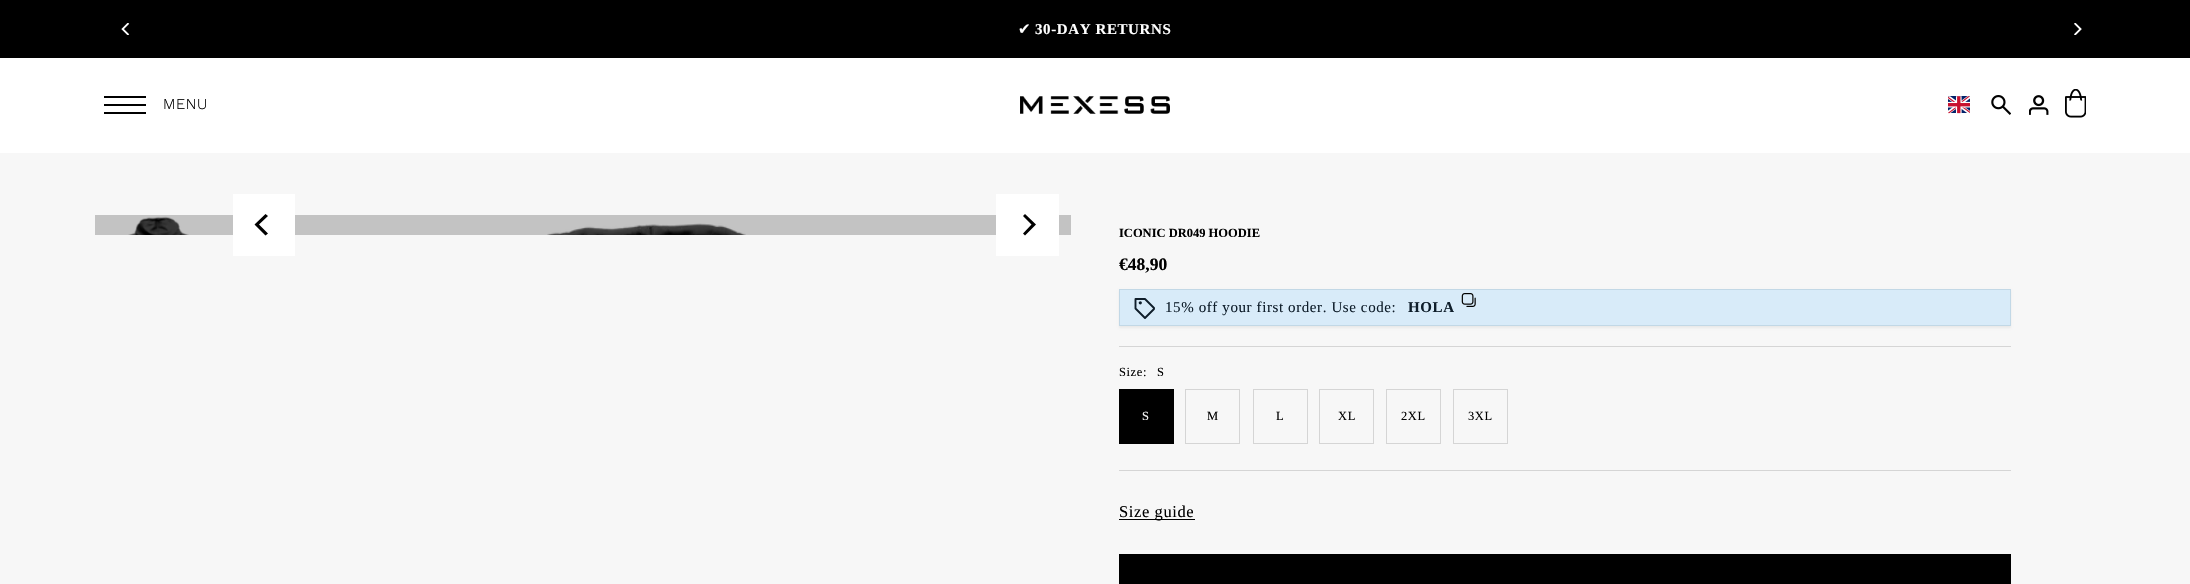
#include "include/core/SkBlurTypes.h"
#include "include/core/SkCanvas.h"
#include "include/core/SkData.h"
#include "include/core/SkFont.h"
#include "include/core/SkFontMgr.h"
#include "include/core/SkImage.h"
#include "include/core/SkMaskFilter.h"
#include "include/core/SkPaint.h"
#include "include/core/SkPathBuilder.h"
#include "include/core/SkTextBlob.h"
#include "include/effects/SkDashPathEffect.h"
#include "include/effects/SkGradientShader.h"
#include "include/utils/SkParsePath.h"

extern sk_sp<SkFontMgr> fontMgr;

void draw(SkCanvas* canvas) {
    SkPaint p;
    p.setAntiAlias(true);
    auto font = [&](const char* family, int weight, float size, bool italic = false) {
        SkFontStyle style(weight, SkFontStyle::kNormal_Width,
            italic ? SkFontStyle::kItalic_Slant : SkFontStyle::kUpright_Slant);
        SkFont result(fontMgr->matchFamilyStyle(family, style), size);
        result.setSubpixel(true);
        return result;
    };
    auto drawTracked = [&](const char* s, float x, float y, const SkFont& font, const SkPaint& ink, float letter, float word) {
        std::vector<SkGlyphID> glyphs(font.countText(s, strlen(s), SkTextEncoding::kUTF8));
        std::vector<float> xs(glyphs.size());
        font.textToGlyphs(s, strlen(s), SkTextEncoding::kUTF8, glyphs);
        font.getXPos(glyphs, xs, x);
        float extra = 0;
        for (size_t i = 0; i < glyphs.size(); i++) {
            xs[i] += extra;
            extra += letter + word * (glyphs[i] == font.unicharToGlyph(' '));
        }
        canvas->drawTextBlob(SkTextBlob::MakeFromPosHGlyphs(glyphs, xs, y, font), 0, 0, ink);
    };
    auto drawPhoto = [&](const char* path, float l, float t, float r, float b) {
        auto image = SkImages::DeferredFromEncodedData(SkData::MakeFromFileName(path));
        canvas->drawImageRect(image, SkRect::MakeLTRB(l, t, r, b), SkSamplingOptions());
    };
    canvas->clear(0xFFF7F7F7);
    p.setColor(0xFF000000);
    canvas->drawRect(SkRect::MakeLTRB(0, 0, 2190, 58), p);
    drawPhoto("media/1.png", 121, 23, 130, 35);
    auto font1 = font("DejaVu Sans", 400, 15);
    p.setColor(0xFFFFFFFF);
    drawTracked("✔", 1018, 34, font1, p, 0.6f, 0);
    auto font2 = font("Liberation Serif", 700, 15);
    drawTracked("30-DAY RETURNS", 1035, 34, font2, p, 0.6f, 0);
    drawPhoto("media/2.png", 2074, 23, 2082, 35);
    {
        const struct { float l, t, r, b; SkColor color; } items[] = {
            {0, 58, 2190, 153, 0xFFFFFFFF},
            {104, 96, 146, 98, 0xFF000000},
            {104, 104, 146, 106, 0xFF000000},
            {104, 112, 146, 114, 0xFF000000},
        };
        for (auto [l, t, r, b, color] : items) {
            p.setColor(color);
            canvas->drawRect(SkRect::MakeLTRB(l, t, r, b), p);
        }
    }
    auto font3 = font("Work Sans", 300, 15);
    drawTracked("MENU", 163, 109, font3, p, 0.6f, 0);
    drawPhoto("media/3.png", 1020, 96, 1170, 114);
    drawPhoto("media/4.png", 1948, 96, 1970, 114);
    drawPhoto("media/5.png", 1991, 95, 2011, 115);
    drawPhoto("media/6.png", 2029, 95, 2049, 115);
    drawPhoto("media/7.png", 2065, 89, 2086, 118);
    p.setColor(0xFFC3C3C3);
    canvas->drawRect(SkRect::MakeLTRB(95, 215, 1071, 235), p);
    p.setColor(0xFFFFFFFF);
    canvas->drawRect(SkRect::MakeLTRB(233, 194, 295, 256), p);
    p.setColor(0xFF000000);
    canvas->drawPath(SkPathBuilder().moveTo(254.5f, 224.5f).lineTo(265.5f, 235.5f).lineTo(268, 233.5f).lineTo(259, 224.5f).lineTo(268, 216).lineTo(265.5f, 214).close().detach(), p);
    p.setColor(0xFFFFFFFF);
    canvas->drawRect(SkRect::MakeLTRB(996, 194, 1059, 256), p);
    p.setColor(0xFF000000);
    canvas->drawPath(SkPathBuilder().moveTo(1036, 224.5f).lineTo(1025, 214).lineTo(1023, 216).lineTo(1031.5f, 224.5f).lineTo(1023, 233.5f).lineTo(1025, 235.5f).close().detach(), p);
    drawPhoto("media/8.png", 547, 223, 746, 235);
    drawPhoto("media/9.png", 128, 216, 189, 235);
    auto font4 = font("Liberation Serif", 700, 12.5f);
    canvas->drawString("ICONIC DR049 HOODIE", 1119, 237, font4, p);
    auto font5 = font("Liberation Serif", 700, 17.5f);
    canvas->drawString("€48,90", 1119, 270, font5, p);
    p.setColor(0x0D000000);
    p.setMaskFilter(SkMaskFilter::MakeBlur(kNormal_SkBlurStyle, 1));
    canvas->drawRect(SkRect::MakeLTRB(1119, 290, 2011, 328), p);
    p.setMaskFilter(nullptr);
    p.setColor(0xFFD8EBF9);
    canvas->drawRect(SkRect::MakeLTRB(1119.5f, 289.5f, 2010.5f, 325.5f), p);
    p.setStyle(SkPaint::kStroke_Style);
    p.setStrokeWidth(1);
    p.setColor(0xFFC2D8E6);
    canvas->drawRect(SkRect::MakeLTRB(1119.5f, 289.5f, 2010.5f, 325.5f), p);
    p.setStrokeWidth(1.9f);
    p.setStrokeCap(SkPaint::kRound_Cap);
    p.setStrokeJoin(SkPaint::kRound_Join);
    p.setColor(0xFF0F1E2B);
    canvas->drawPath(SkPathBuilder().moveTo(1154, 309).lineTo(1145, 318).lineTo(1135.5f, 308.5f).lineTo(1135.5f, 299).lineTo(1145, 299).lineTo(1154, 308).close().detach(), p);
    p.setStyle(SkPaint::kFill_Style);
    canvas->drawCircle(1140.3f, 302.8f, 1.6f, p);
    auto font6 = font("Liberation Serif", 400, 15);
    drawTracked("15% off your first order. Use code:", 1165, 312, font6, p, 0.6f, 0);
    drawTracked("HOLA", 1408, 312, font2, p, 0.6f, 0);
    drawPhoto("media/10.png", 1461, 293, 1476, 307);
    p.setColor(0xFFD5D5D5);
    canvas->drawRect(SkRect::MakeLTRB(1119, 470, 2011, 471), p);
    canvas->drawRect(SkRect::MakeLTRB(1119, 346, 2011, 347), p);
    auto font7 = font("Liberation Serif", 400, 12.5f);
    p.setColor(0xFF000000);
    drawTracked("Size:", 1119, 376, font7, p, 0.6f, 0);
    drawTracked("S", 1157, 376, font7, p, 0.6f, 0);
    canvas->drawRect(SkRect::MakeLTRB(1119, 389, 1174, 444), p);
    p.setColor(0xFFF7F7F7);
    drawTracked("S", 1142, 420, font7, p, 0.6f, 0);
    p.setStyle(SkPaint::kStroke_Style);
    p.setStrokeWidth(1);
    p.setStrokeCap(SkPaint::kButt_Cap);
    p.setStrokeJoin(SkPaint::kMiter_Join);
    p.setColor(0xFFD5D5D5);
    canvas->drawRect(SkRect::MakeLTRB(1185.5f, 389.5f, 1239.5f, 443.5f), p);
    p.setStyle(SkPaint::kFill_Style);
    p.setColor(0xFF000000);
    drawTracked("M", 1207, 420, font7, p, 0.6f, 0);
    p.setStyle(SkPaint::kStroke_Style);
    p.setColor(0xFFD5D5D5);
    canvas->drawRect(SkRect::MakeLTRB(1253.5f, 389.5f, 1307.5f, 443.5f), p);
    p.setStyle(SkPaint::kFill_Style);
    p.setColor(0xFF000000);
    drawTracked("L", 1276, 420, font7, p, 0.6f, 0);
    p.setStyle(SkPaint::kStroke_Style);
    p.setColor(0xFFD5D5D5);
    canvas->drawRect(SkRect::MakeLTRB(1319.5f, 389.5f, 1373.5f, 443.5f), p);
    p.setStyle(SkPaint::kFill_Style);
    p.setColor(0xFF000000);
    drawTracked("XL", 1338, 420, font7, p, 0.6f, 0);
    p.setStyle(SkPaint::kStroke_Style);
    p.setColor(0xFFD5D5D5);
    canvas->drawRect(SkRect::MakeLTRB(1386.5f, 389.5f, 1440.5f, 443.5f), p);
    p.setStyle(SkPaint::kFill_Style);
    p.setColor(0xFF000000);
    drawTracked("2XL", 1401, 420, font7, p, 0.6f, 0);
    p.setStyle(SkPaint::kStroke_Style);
    p.setColor(0xFFD5D5D5);
    canvas->drawRect(SkRect::MakeLTRB(1453.5f, 389.5f, 1507.5f, 443.5f), p);
    p.setStyle(SkPaint::kFill_Style);
    p.setColor(0xFF000000);
    drawTracked("3XL", 1468, 420, font7, p, 0.6f, 0);
    canvas->drawRect(SkRect::MakeLTRB(1119, 519, 1195, 520), p);
    auto font8 = font("Liberation Serif", 400, 16.5f);
    drawTracked("Size guide", 1119, 517, font8, p, 0.6f, 0);
    p.setStyle(SkPaint::kStroke_Style);
    canvas->drawRect(SkRect::MakeLTRB(1119.5f, 554.5f, 2010.5f, 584.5f), p);
    p.setStyle(SkPaint::kFill_Style);
    canvas->drawRect(SkRect::MakeLTRB(1120, 555, 2010, 584), p);
}
